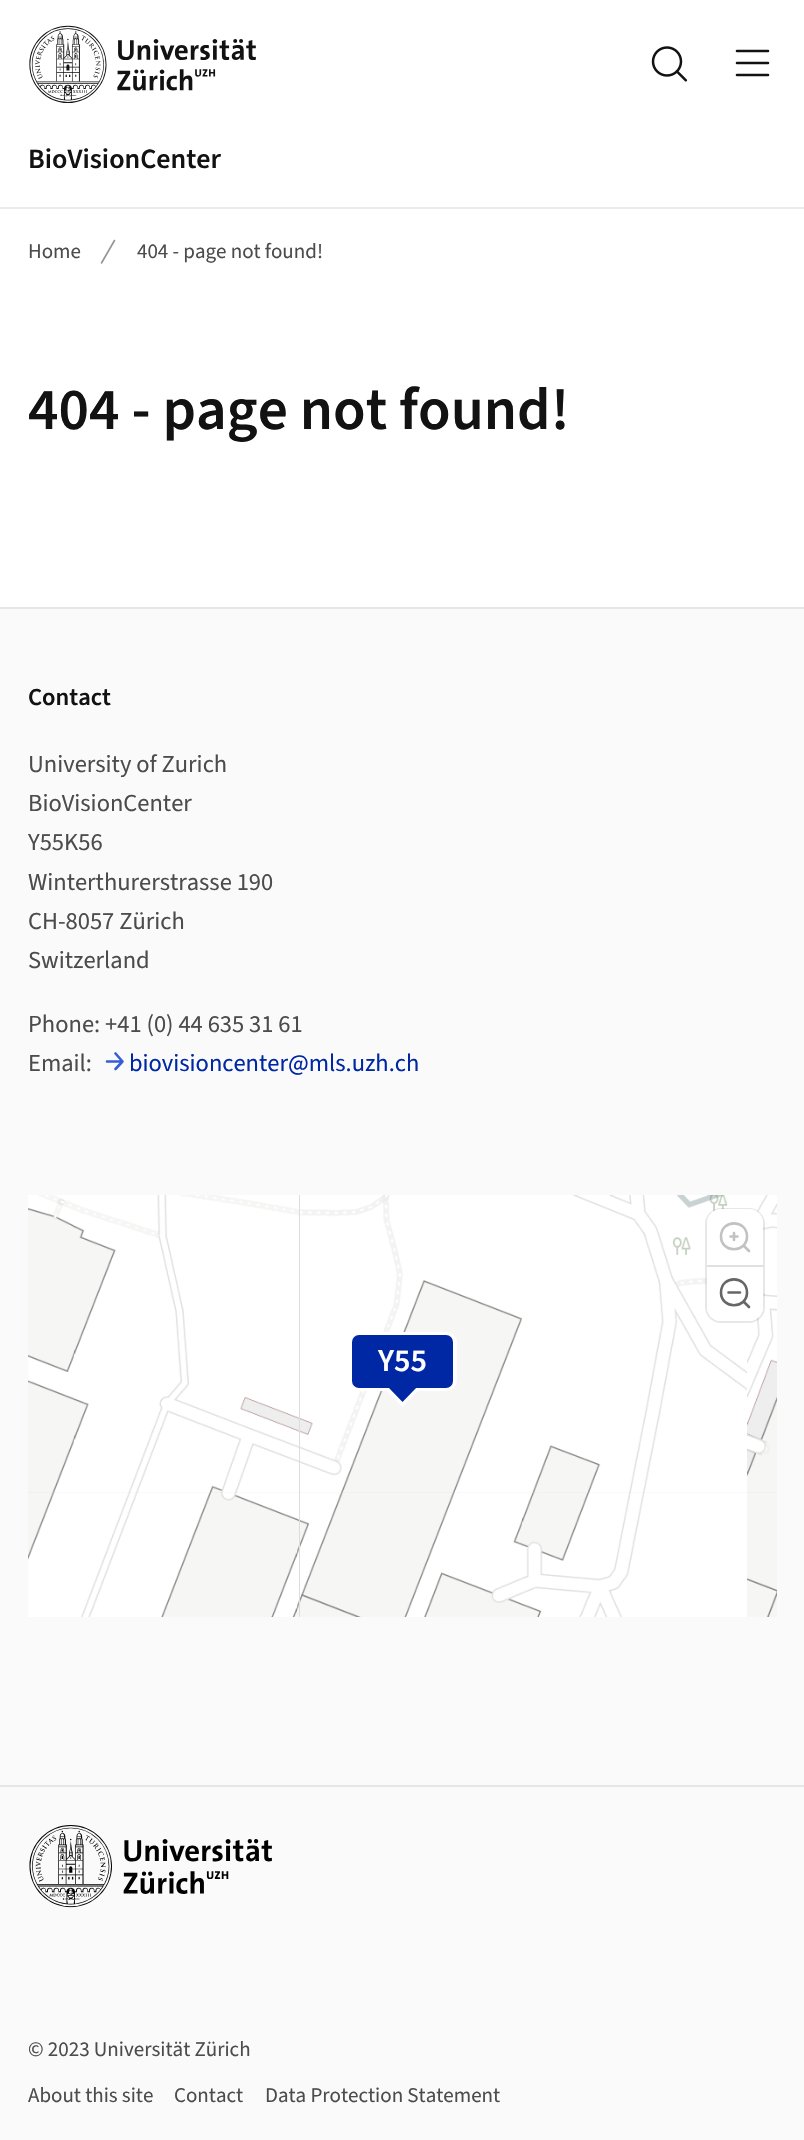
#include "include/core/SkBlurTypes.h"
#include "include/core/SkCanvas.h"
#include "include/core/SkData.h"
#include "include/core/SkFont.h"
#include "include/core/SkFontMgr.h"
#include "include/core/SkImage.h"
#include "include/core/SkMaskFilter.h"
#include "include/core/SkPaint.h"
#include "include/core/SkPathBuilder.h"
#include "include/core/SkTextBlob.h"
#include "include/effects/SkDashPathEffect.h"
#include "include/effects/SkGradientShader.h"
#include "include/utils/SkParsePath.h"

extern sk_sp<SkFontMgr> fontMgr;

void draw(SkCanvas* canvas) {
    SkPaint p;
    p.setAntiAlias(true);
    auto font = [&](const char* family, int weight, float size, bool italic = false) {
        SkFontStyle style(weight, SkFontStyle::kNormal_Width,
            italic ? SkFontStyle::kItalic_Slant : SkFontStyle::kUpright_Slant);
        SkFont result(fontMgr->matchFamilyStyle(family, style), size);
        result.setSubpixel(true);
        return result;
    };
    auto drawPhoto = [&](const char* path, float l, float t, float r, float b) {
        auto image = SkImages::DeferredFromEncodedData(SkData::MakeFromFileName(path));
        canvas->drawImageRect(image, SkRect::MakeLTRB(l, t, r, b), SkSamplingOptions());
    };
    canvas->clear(0xFFFFFFFF);
    p.setColor(0x14121212);
    canvas->drawRect(SkRect::MakeLTRB(0, 207, 804, 209), p);
    drawPhoto("media/1.png", 29, 25, 256, 103);
    drawPhoto("media/2.png", 651, 46, 688, 82);
    p.setStyle(SkPaint::kStroke_Style);
    p.setStrokeWidth(2.6f);
    p.setStrokeCap(SkPaint::kRound_Cap);
    p.setStrokeJoin(SkPaint::kRound_Join);
    p.setColor(0xFF121212);
    canvas->drawPath(SkPathBuilder().moveTo(737, 51).lineTo(768, 51).moveTo(737, 63).lineTo(768, 63).moveTo(737, 75).lineTo(768, 75).detach(), p);
    auto font1 = font("Source Sans 3", 600, 28);
    p.setStyle(SkPaint::kFill_Style);
    canvas->drawString("BioVisionCenter", 28, 168, font1, p);
    auto font2 = font("Source Sans 3", 400, 21);
    p.setColor(0xFF4C4C4C);
    canvas->drawString("Home", 28, 258, font2, p);
    p.setStyle(SkPaint::kStroke_Style);
    p.setStrokeWidth(1.6f);
    p.setStrokeJoin(SkPaint::kMiter_Join);
    p.setColor(0xFF949494);
    canvas->drawPath(SkPathBuilder().moveTo(101.5f, 263).lineTo(114.5f, 240.5f).detach(), p);
    p.setStyle(SkPaint::kFill_Style);
    p.setColor(0xFF4C4C4C);
    canvas->drawString("404 - page not found!", 137, 258, font2, p);
    auto font3 = font("Source Sans 3", 600, 59.5f);
    p.setColor(0xFF121212);
    canvas->drawString("404 - page not found!", 28, 429, font3, p);
    p.setColor(0xFFFAFAFA);
    canvas->drawRect(SkRect::MakeLTRB(0, 609, 804, 2140), p);
    p.setColor(0xFFE6E6E6);
    canvas->drawRect(SkRect::MakeLTRB(0, 607, 804, 609), p);
    auto font4 = font("Source Sans 3", 600, 24.5f);
    p.setColor(0xFF121212);
    canvas->drawString("Contact", 28, 705, font4, p);
    auto font5 = font("Source Sans 3", 400, 24.5f);
    p.setColor(0xFF4C4C4C);
    {
        const struct { const char* s; float x, y; } items[] = {
            {"University of Zurich", 28, 772},
            {"BioVisionCenter", 28, 811},
            {"Y55K56", 28, 850},
            {"Winterthurerstrasse 190", 28, 890},
            {"CH-8057 Zürich", 28, 929},
            {"Switzerland", 28, 968},
            {"Phone: +41 (0) 44 635 31 61", 28, 1032},
            {"Email:", 28, 1071},
        };
        for (auto [s, x, y] : items) {
            canvas->drawString(s, x, y, font5, p);
        }
    }
    p.setStyle(SkPaint::kStroke_Style);
    p.setStrokeWidth(2.6f);
    p.setStrokeJoin(SkPaint::kRound_Join);
    p.setColor(0xFF365DD5);
    canvas->drawPath(SkPathBuilder().moveTo(115.5f, 1053.5f).lineTo(122.5f, 1061.5f).moveTo(122.5f, 1061.5f).lineTo(115.5f, 1069).moveTo(122.5f, 1061.5f).lineTo(107, 1061.5f).detach(), p);
    p.setStyle(SkPaint::kFill_Style);
    p.setColor(0xFF0028A5);
    canvas->drawString("biovisioncenter@mls.uzh.ch", 129, 1071, font5, p);
    p.setColor(0xFFDDDDDD);
    canvas->drawRect(SkRect::MakeLTRB(28, 1195, 777, 1617), p);
    drawPhoto("media/4.png", 300, 1195, 747, 1493);
    drawPhoto("media/5.png", 747, 1195, 777, 1493);
    p.setStyle(SkPaint::kStroke_Style);
    p.setStrokeWidth(2);
    p.setStrokeCap(SkPaint::kButt_Cap);
    p.setStrokeJoin(SkPaint::kMiter_Join);
    p.setColor(0x1A121212);
    canvas->drawRoundRect(SkRect::MakeLTRB(706, 1209, 764, 1322), 15, 15, p);
    p.setStyle(SkPaint::kFill_Style);
    p.setColor(0xFFFFFFFF);
    canvas->drawRoundRect(SkRect::MakeLTRB(707, 1209, 763, 1321), 14, 14, p);
    p.setColor(0x66FFFFFF);
    canvas->drawPath(SkPathBuilder().moveTo(721, 1209).lineTo(749, 1209).cubicTo(756.5f, 1209, 763, 1215.5f, 763, 1223).lineTo(763, 1265).lineTo(707, 1265).lineTo(707, 1223).cubicTo(707, 1215.5f, 713.5f, 1209, 721, 1209).close().detach(), p);
    p.setStyle(SkPaint::kStroke_Style);
    p.setStrokeWidth(2.6f);
    p.setStrokeCap(SkPaint::kRound_Cap);
    p.setStrokeJoin(SkPaint::kRound_Join);
    p.setColor(0xFFC2C2C2);
    canvas->drawPath(SkPathBuilder().moveTo(749, 1251).lineTo(743.5f, 1245.5f).moveTo(721, 1236.5f).cubicTo(721, 1253.5f, 747, 1253.5f, 747, 1236.5f).cubicTo(747, 1219, 721, 1219, 721, 1236.5f).moveTo(734, 1233).lineTo(734, 1240).moveTo(730.5f, 1236.5f).lineTo(737.5f, 1236.5f).detach(), p);
    p.setStyle(SkPaint::kFill_Style);
    p.setColor(0xFFFFFFFF);
    canvas->drawPath(SkPathBuilder().moveTo(707, 1265).lineTo(763, 1265).lineTo(763, 1307).cubicTo(763, 1314.5f, 756.5f, 1321, 749, 1321).lineTo(721, 1321).cubicTo(713.5f, 1321, 707, 1314.5f, 707, 1307).close().detach(), p);
    p.setStyle(SkPaint::kStroke_Style);
    p.setColor(0xFF666666);
    canvas->drawPath(SkPathBuilder().moveTo(747, 1292.5f).cubicTo(747, 1309.5f, 721, 1309.5f, 721, 1292.5f).cubicTo(721, 1275, 747, 1275, 747, 1292.5f).close().moveTo(749, 1307).lineTo(743.5f, 1301.5f).moveTo(740, 1292.5f).lineTo(728.5f, 1292.5f).detach(), p);
    p.setStyle(SkPaint::kFill_Style);
    p.setColor(0xFFE0E0E0);
    canvas->drawRect(SkRect::MakeLTRB(707, 1265, 763, 1267), p);
    drawPhoto("media/3.png", 28, 1195, 299, 1493);
    drawPhoto("media/6.png", 28, 1493, 299, 1617);
    drawPhoto("media/7.png", 300, 1493, 747, 1617);
    drawPhoto("media/8.png", 747, 1493, 777, 1617);
    p.setStyle(SkPaint::kStroke_Style);
    p.setStrokeWidth(4);
    p.setStrokeCap(SkPaint::kButt_Cap);
    p.setStrokeJoin(SkPaint::kMiter_Join);
    p.setColor(0xFFFFFFFF);
    canvas->drawRoundRect(SkRect::MakeLTRB(350, 1334, 455, 1389), 9, 9, p);
    p.setStyle(SkPaint::kFill_Style);
    p.setColor(0xFF0028A5);
    canvas->drawRoundRect(SkRect::MakeLTRB(352, 1335, 453, 1388), 7, 7, p);
    auto font6 = font("Source Sans 3", 600, 32);
    p.setColor(0xFFFFFFFF);
    canvas->drawString("Y55", 378, 1371, font6, p);
    canvas->drawPath(SkPathBuilder().moveTo(387, 1391).lineTo(418, 1391).lineTo(402.5f, 1407).close().detach(), p);
    p.setColor(0xFF0028A5);
    canvas->drawPath(SkPathBuilder().moveTo(387, 1386).lineTo(418, 1386).lineTo(402.5f, 1402).close().detach(), p);
    p.setColor(0xFFE6E6E6);
    canvas->drawRect(SkRect::MakeLTRB(0, 1785, 804, 1787), p);
    drawPhoto("media/9.png", 29, 1825, 272, 1908);
    p.setColor(0xFF4C4C4C);
    {
        const struct { const char* s; float x, y; } items[] = {
            {"© 2023 Universität Zürich", 28, 2056},
            {"About this site", 28, 2102},
            {"Contact", 174, 2102},
            {"Data Protection Statement", 265, 2102},
        };
        for (auto [s, x, y] : items) {
            canvas->drawString(s, x, y, font2, p);
        }
    }
}
